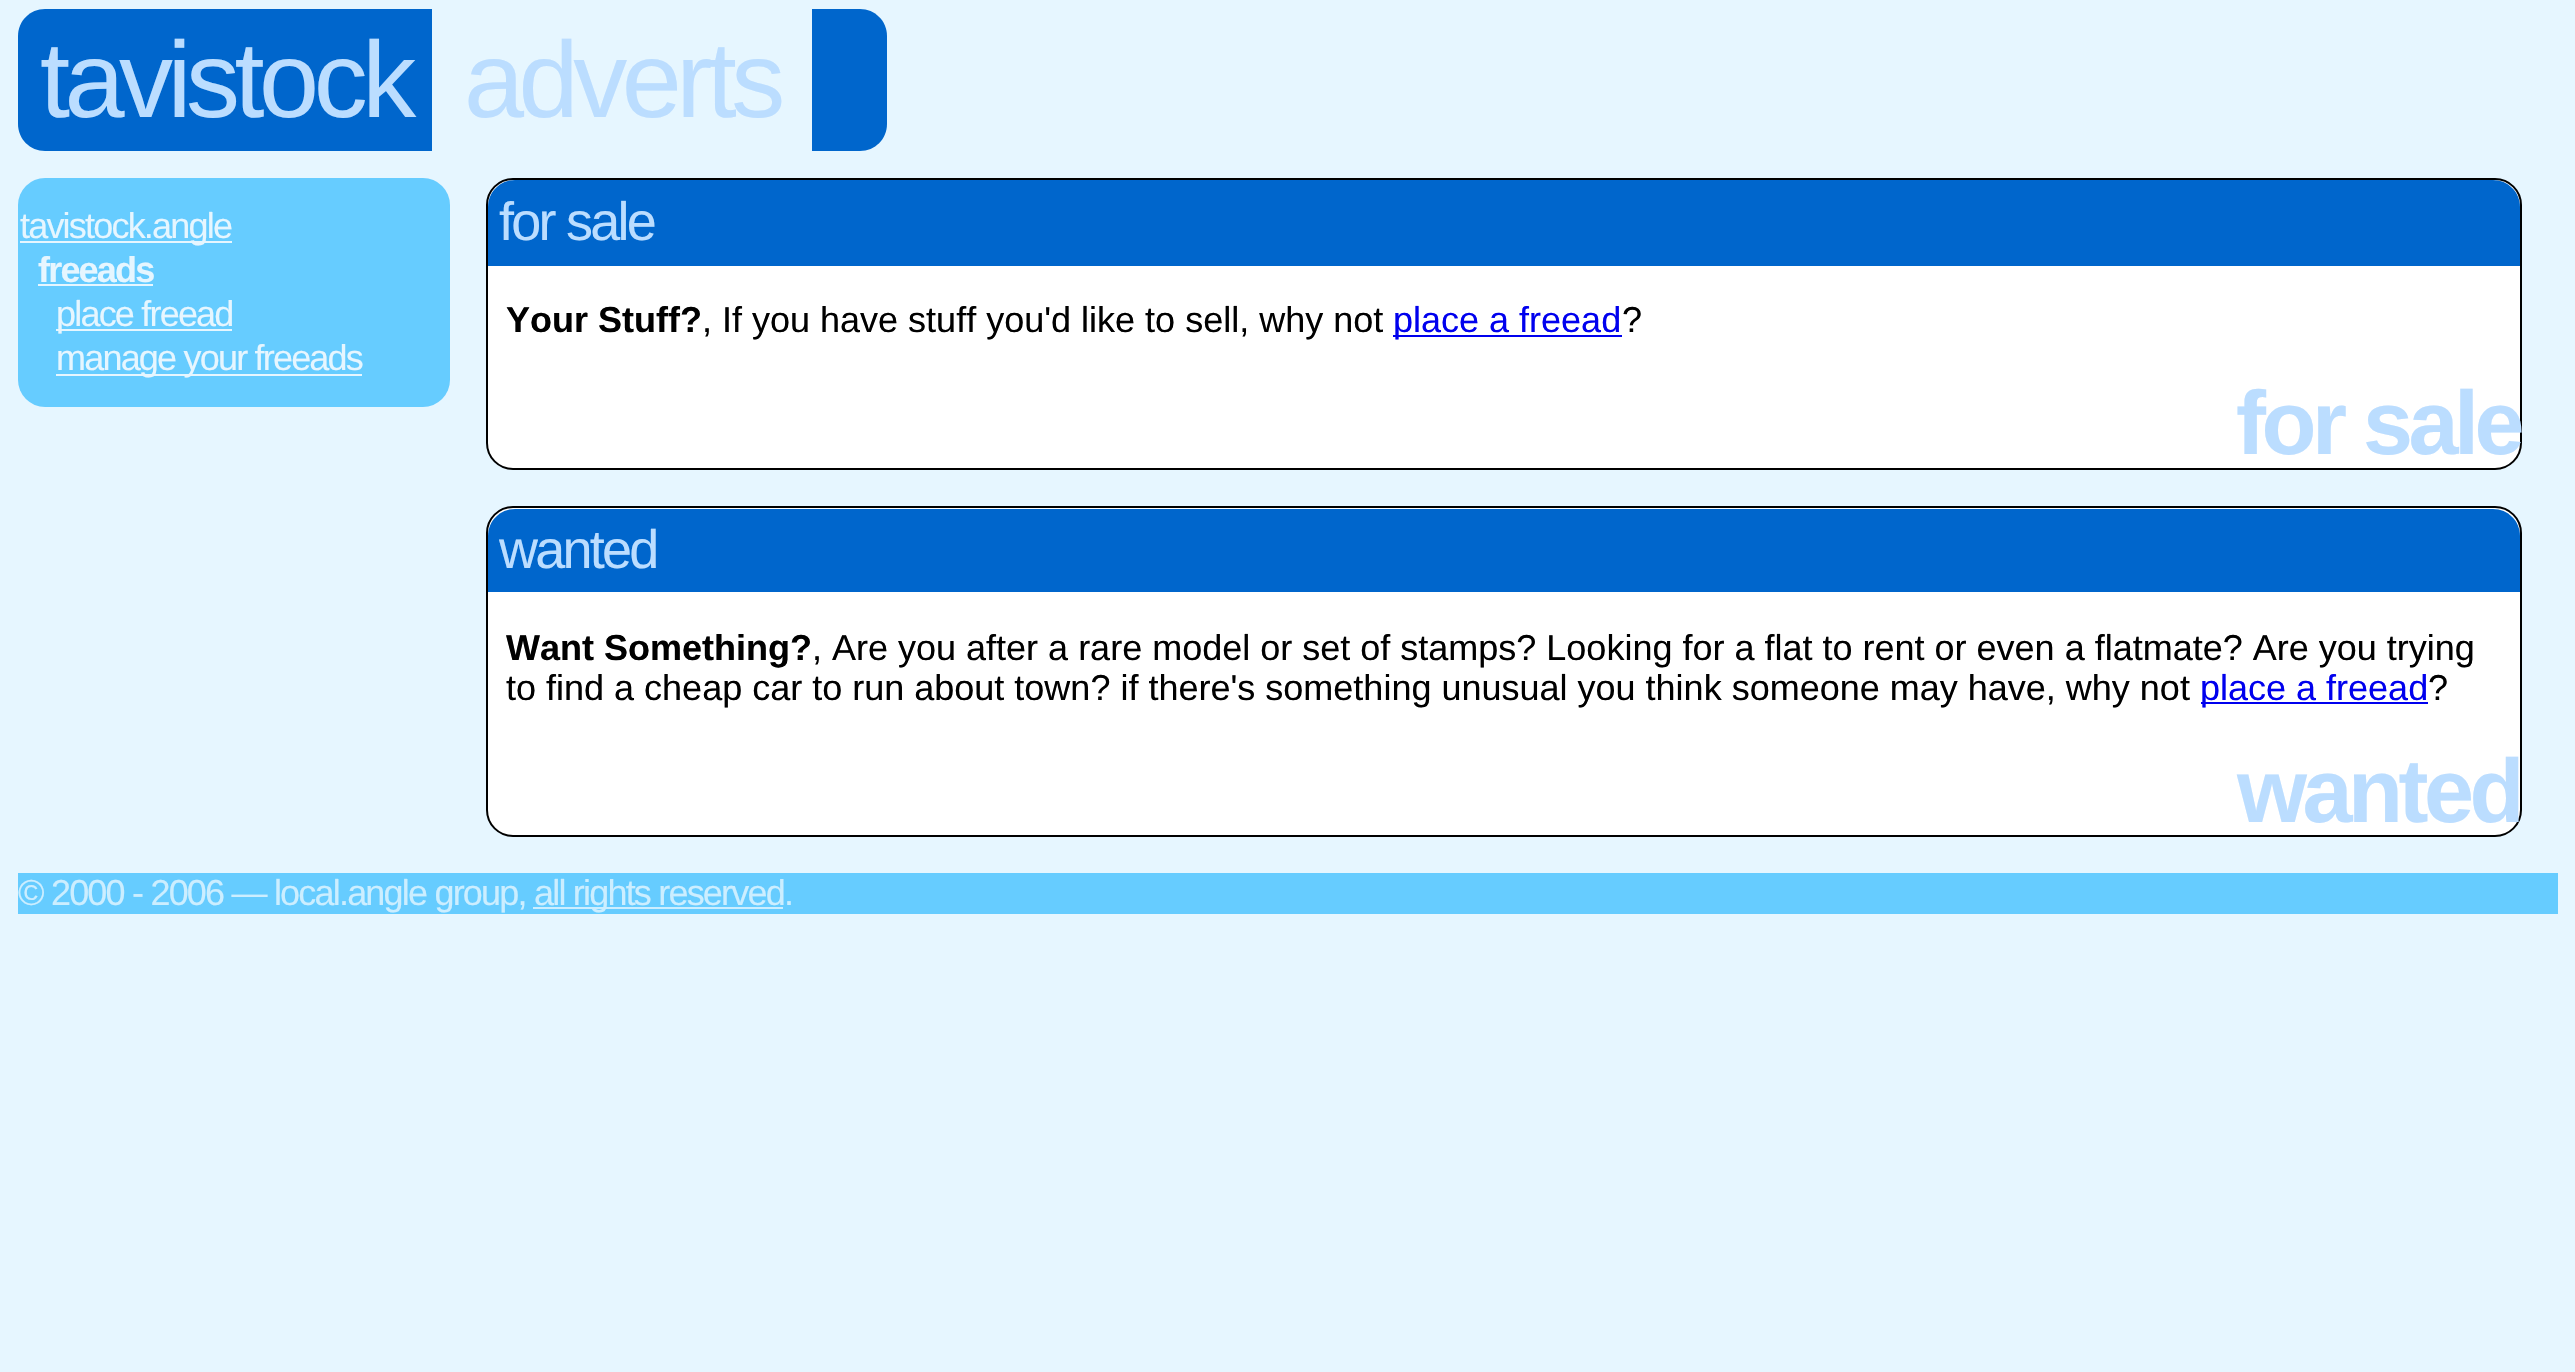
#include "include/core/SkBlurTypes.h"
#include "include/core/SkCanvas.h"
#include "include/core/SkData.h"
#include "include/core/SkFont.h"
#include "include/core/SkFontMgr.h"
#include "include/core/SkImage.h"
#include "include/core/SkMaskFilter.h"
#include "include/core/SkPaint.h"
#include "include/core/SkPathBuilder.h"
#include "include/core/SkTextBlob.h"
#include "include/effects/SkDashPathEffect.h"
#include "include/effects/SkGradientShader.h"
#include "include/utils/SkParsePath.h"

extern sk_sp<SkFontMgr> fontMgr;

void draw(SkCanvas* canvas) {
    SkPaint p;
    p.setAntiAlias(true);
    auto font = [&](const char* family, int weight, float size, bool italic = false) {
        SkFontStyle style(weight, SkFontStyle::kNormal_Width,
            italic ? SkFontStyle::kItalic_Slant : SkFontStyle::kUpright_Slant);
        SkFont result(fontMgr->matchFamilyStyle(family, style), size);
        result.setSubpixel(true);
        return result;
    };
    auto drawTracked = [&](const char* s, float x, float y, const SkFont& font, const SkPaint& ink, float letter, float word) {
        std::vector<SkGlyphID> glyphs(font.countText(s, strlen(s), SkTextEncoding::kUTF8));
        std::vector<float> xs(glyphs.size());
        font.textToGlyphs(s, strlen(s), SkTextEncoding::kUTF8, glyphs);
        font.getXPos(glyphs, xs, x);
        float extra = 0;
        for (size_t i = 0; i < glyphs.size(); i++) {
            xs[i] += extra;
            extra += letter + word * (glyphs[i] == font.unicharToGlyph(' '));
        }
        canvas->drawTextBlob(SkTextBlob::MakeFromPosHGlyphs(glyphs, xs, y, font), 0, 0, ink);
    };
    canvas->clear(0xFFE6F6FF);
    p.setColor(0xFF0066CC);
    canvas->drawPath(SkPathBuilder().moveTo(45, 9).lineTo(432, 9).lineTo(432, 151).lineTo(45, 151).cubicTo(30, 151, 18, 139, 18, 124).lineTo(18, 36).cubicTo(18, 21, 30, 9, 45, 9).close().detach(), p);
    auto font1 = font("Liberation Sans", 400, 108);
    p.setColor(0xFFBBDDFF);
    drawTracked("tavistock", 40, 117, font1, p, -5.5f, 0);
    drawTracked("adverts", 464, 117, font1, p, -5.5f, 0);
    p.setColor(0xFF0066CC);
    canvas->drawPath(SkPathBuilder().moveTo(812, 9).lineTo(860, 9).cubicTo(875, 9, 887, 21, 887, 36).lineTo(887, 124).cubicTo(887, 139, 875, 151, 860, 151).lineTo(812, 151).close().detach(), p);
    p.setColor(0xFF66CCFF);
    canvas->drawRoundRect(SkRect::MakeLTRB(18, 178, 450, 407), 27, 27, p);
    p.setColor(0xFFE6F6FF);
    canvas->drawRect(SkRect::MakeLTRB(20, 241, 232, 243), p);
    auto font2 = font("Liberation Sans", 400, 36);
    drawTracked("tavistock.angle", 20, 238, font2, p, -1.8f, 0);
    auto font3 = font("Liberation Sans", 700, 36);
    drawTracked("freeads", 38, 282, font3, p, -1.8f, 0);
    canvas->drawRect(SkRect::MakeLTRB(38, 284, 153, 286), p);
    canvas->drawRect(SkRect::MakeLTRB(56, 329, 232, 331), p);
    drawTracked("place freead", 56, 326, font2, p, -1.8f, 0);
    canvas->drawRect(SkRect::MakeLTRB(56, 374, 362, 376), p);
    drawTracked("manage your freeads", 56, 370, font2, p, -1.8f, 0);
    p.setColor(0xFFFFFFFF);
    canvas->drawRoundRect(SkRect::MakeLTRB(487, 179, 2521, 469), 26, 26, p);
    p.setStyle(SkPaint::kStroke_Style);
    p.setStrokeWidth(2);
    p.setColor(0xFF000000);
    canvas->drawRoundRect(SkRect::MakeLTRB(487, 179, 2521, 469), 26, 26, p);
    p.setStyle(SkPaint::kFill_Style);
    p.setColor(0xFF0066CC);
    canvas->drawPath(SkPathBuilder().moveTo(515, 180).lineTo(2493, 180).cubicTo(2508, 180, 2520, 192, 2520, 207).lineTo(2520, 266).lineTo(488, 266).lineTo(488, 207).cubicTo(488, 192, 500, 180, 515, 180).close().detach(), p);
    auto font4 = font("Liberation Sans", 400, 54);
    p.setColor(0xFFBBDDFF);
    drawTracked("for sale", 499, 240, font4, p, -2.75f, 0);
    p.setColor(0xFF000000);
    canvas->drawString("Your Stuff?", 506, 332, font3, p);
    canvas->drawString(", If you have stuff you'd like to sell, why not", 702, 332, font2, p);
    p.setColor(0xFF0000EE);
    canvas->drawRect(SkRect::MakeLTRB(1393, 335, 1622, 337), p);
    canvas->drawString("place a freead", 1393, 332, font2, p);
    p.setColor(0xFF000000);
    canvas->drawString("?", 1622, 332, font2, p);
    auto font5 = font("Liberation Sans", 700, 90);
    p.setColor(0xFFBBDDFF);
    drawTracked("for sale", 2236, 454, font5, p, -4.5f, 0);
    p.setColor(0xFFFFFFFF);
    canvas->drawRoundRect(SkRect::MakeLTRB(487, 507, 2521, 836), 26, 26, p);
    p.setStyle(SkPaint::kStroke_Style);
    p.setColor(0xFF000000);
    canvas->drawRoundRect(SkRect::MakeLTRB(487, 507, 2521, 836), 26, 26, p);
    p.setStyle(SkPaint::kFill_Style);
    p.setColor(0xFF0066CC);
    canvas->drawPath(SkPathBuilder().moveTo(515, 509).lineTo(2493, 509).cubicTo(2508, 509, 2520, 521, 2520, 536).lineTo(2520, 592).lineTo(488, 592).lineTo(488, 536).cubicTo(488, 521, 500, 509, 515, 509).close().detach(), p);
    p.setColor(0xFFBBDDFF);
    drawTracked("wanted", 499, 568, font4, p, -2.75f, 0);
    p.setColor(0xFF000000);
    canvas->drawString("Want Something?", 506, 660, font3, p);
    canvas->drawString(", Are you after a rare model or set of stamps? Looking for a flat to rent or even a flatmate? Are you trying", 812, 660, font2, p);
    canvas->drawString("to find a cheap car to run about town? if there's something unusual you think someone may have, why not", 506, 700, font2, p);
    p.setColor(0xFF0000EE);
    canvas->drawRect(SkRect::MakeLTRB(2201, 702, 2428, 704), p);
    canvas->drawString("place a freead", 2200, 700, font2, p);
    p.setColor(0xFF000000);
    canvas->drawString("?", 2428, 700, font2, p);
    p.setColor(0xFFBBDDFF);
    drawTracked("wanted", 2237, 822, font5, p, -4.5f, 0);
    p.setColor(0xFF66CCFF);
    canvas->drawRect(SkRect::MakeLTRB(18, 873, 2558, 914), p);
    p.setColor(0xFFCCEEFF);
    drawTracked("© 2000 - 2006 — local.angle group,", 18, 905, font2, p, -1.8f, 0);
    canvas->drawRect(SkRect::MakeLTRB(533, 907, 783, 909), p);
    drawTracked("all rights reserved.", 534, 905, font2, p, -1.8f, 0);
}
